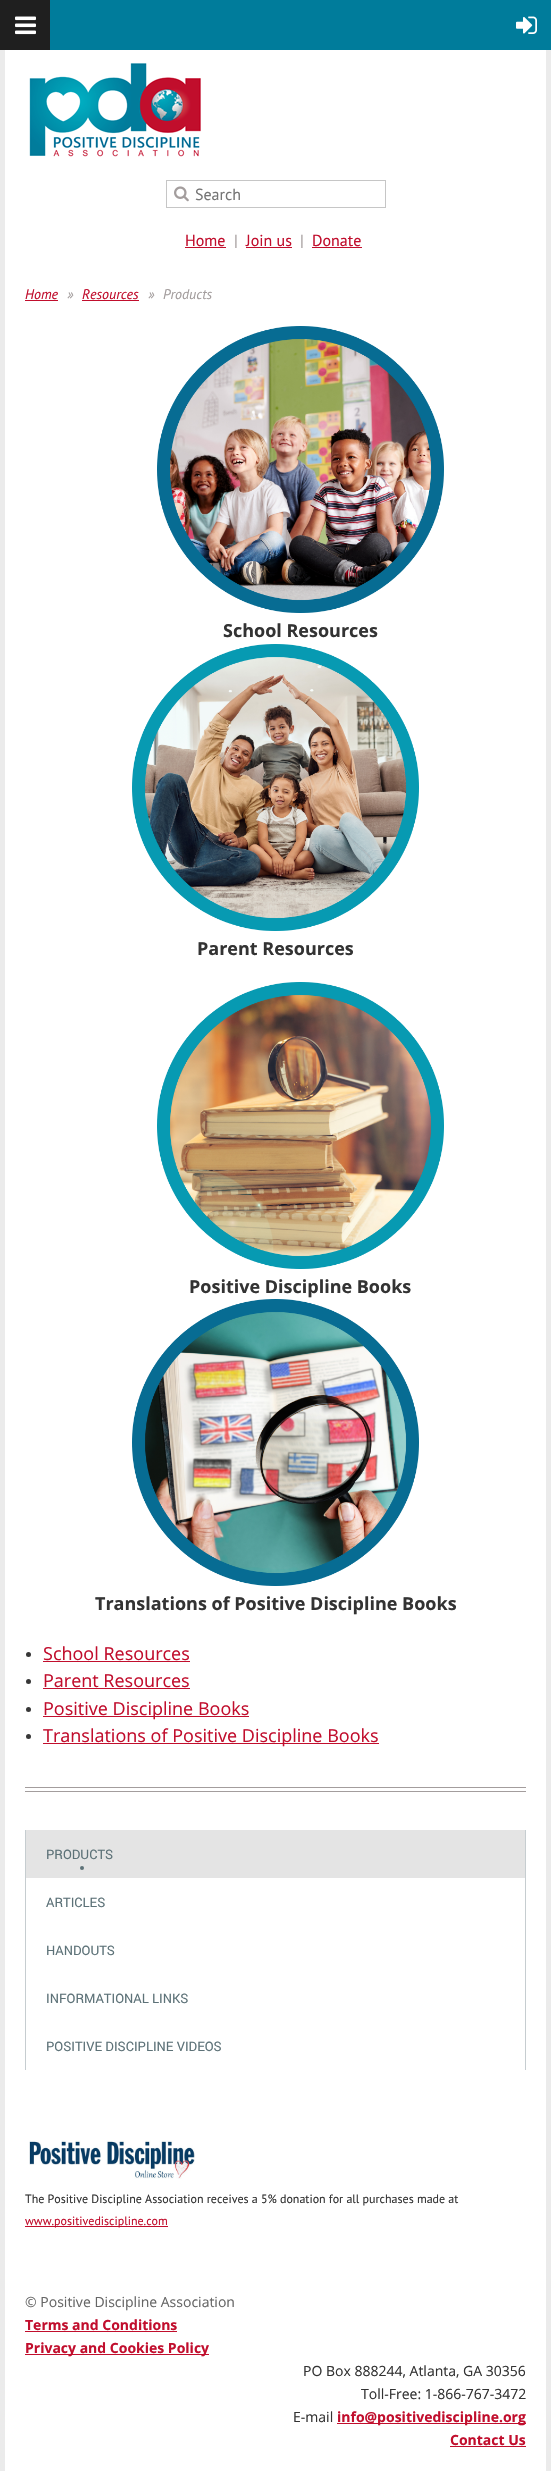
#include "include/core/SkBlurTypes.h"
#include "include/core/SkCanvas.h"
#include "include/core/SkData.h"
#include "include/core/SkFont.h"
#include "include/core/SkFontMgr.h"
#include "include/core/SkImage.h"
#include "include/core/SkMaskFilter.h"
#include "include/core/SkPaint.h"
#include "include/core/SkPathBuilder.h"
#include "include/core/SkTextBlob.h"
#include "include/effects/SkDashPathEffect.h"
#include "include/effects/SkGradientShader.h"
#include "include/utils/SkParsePath.h"

extern sk_sp<SkFontMgr> fontMgr;

void draw(SkCanvas* canvas) {
    SkPaint p;
    p.setAntiAlias(true);
    auto font = [&](const char* family, int weight, float size, bool italic = false) {
        SkFontStyle style(weight, SkFontStyle::kNormal_Width,
            italic ? SkFontStyle::kItalic_Slant : SkFontStyle::kUpright_Slant);
        SkFont result(fontMgr->matchFamilyStyle(family, style), size);
        result.setSubpixel(true);
        return result;
    };
    auto drawPhoto = [&](const char* path, float l, float t, float r, float b) {
        auto image = SkImages::DeferredFromEncodedData(SkData::MakeFromFileName(path));
        canvas->drawImageRect(image, SkRect::MakeLTRB(l, t, r, b), SkSamplingOptions());
    };
    canvas->clear(0xFFEBEBEB);
    p.setColor(0xFF007C9B);
    canvas->drawRect(SkRect::MakeLTRB(50, 0, 551, 50), p);
    p.setColor(0xFF1F1F1F);
    canvas->drawRect(SkRect::MakeLTRB(0, 0, 50, 50), p);
    drawPhoto("media/1.png", 15, 16, 36, 35);
    drawPhoto("media/2.png", 516, 16, 537, 34);
    p.setColor(0xFFFFFFFF);
    canvas->drawRect(SkRect::MakeLTRB(5, 50, 546, 2471), p);
    drawPhoto("media/3.png", 29, 63, 201, 157);
    p.setStyle(SkPaint::kStroke_Style);
    p.setStrokeWidth(1);
    p.setColor(0xFFC6C6C6);
    canvas->drawRect(SkRect::MakeLTRB(166.5f, 180.5f, 385.5f, 207.5f), p);
    drawPhoto("media/4.png", 174, 186, 189, 202);
    auto font1 = font("PT Sans", 400, 16);
    p.setStyle(SkPaint::kFill_Style);
    p.setColor(0xFF757575);
    canvas->drawString("Search", 195, 200, font1, p);
    p.setColor(0xFFC10E2D);
    canvas->drawString("Home", 185, 246, font1, p);
    canvas->drawRect(SkRect::MakeLTRB(185, 247, 226, 248), p);
    p.setColor(0xFFA39D9D);
    canvas->drawString("|", 234, 246, font1, p);
    p.setColor(0xFFC10E2D);
    canvas->drawString("Join us", 246, 246, font1, p);
    canvas->drawRect(SkRect::MakeLTRB(246, 247, 292, 248), p);
    p.setColor(0xFFA39D9D);
    canvas->drawString("|", 300, 246, font1, p);
    p.setColor(0xFFC10E2D);
    canvas->drawString("Donate", 312, 246, font1, p);
    canvas->drawRect(SkRect::MakeLTRB(312, 247, 362, 248), p);
    auto font2 = font("PT Sans", 400, 14, true);
    canvas->drawString("Home", 25, 299, font2, p);
    canvas->drawRect(SkRect::MakeLTRB(25, 300, 58, 301), p);
    p.setColor(0xFFA39D9D);
    canvas->drawString("»", 67, 299, font2, p);
    p.setColor(0xFFC10E2D);
    canvas->drawString("Resources", 82, 299, font2, p);
    canvas->drawRect(SkRect::MakeLTRB(82, 300, 139, 301), p);
    p.setColor(0xFFA39D9D);
    canvas->drawString("»", 148, 299, font2, p);
    canvas->drawString("Products", 163, 299, font2, p);
    drawPhoto("media/5.png", 157, 326, 444, 613);
    auto font3 = font("Open Sans", 700, 18);
    p.setColor(0xFF333333);
    canvas->drawString("School Resources", 223, 637, font3, p);
    drawPhoto("media/6.png", 132, 644, 419, 931);
    canvas->drawString("Parent Resources", 197, 955, font3, p);
    drawPhoto("media/7.png", 157, 982, 444, 1269);
    canvas->drawString("Positive Discipline Books", 189, 1293, font3, p);
    drawPhoto("media/8.png", 132, 1299, 419, 1586);
    canvas->drawString("Translations of Positive Discipline Books", 95, 1610, font3, p);
    p.setColor(0xFF373737);
    canvas->drawCircle(28.5f, 1654.5f, 2.5f, p);
    auto font4 = font("Open Sans", 400, 18);
    p.setColor(0xFFC10E2D);
    canvas->drawString("School Resources", 43, 1660, font4, p);
    canvas->drawRect(SkRect::MakeLTRB(43, 1661, 190, 1662), p);
    p.setColor(0xFF373737);
    canvas->drawCircle(28.5f, 1681.5f, 2.5f, p);
    p.setColor(0xFFC10E2D);
    canvas->drawString("Parent Resources", 43, 1687, font4, p);
    canvas->drawRect(SkRect::MakeLTRB(43, 1688, 190, 1689), p);
    p.setColor(0xFF373737);
    canvas->drawCircle(28.5f, 1709.5f, 2.5f, p);
    p.setColor(0xFFC10E2D);
    canvas->drawRect(SkRect::MakeLTRB(43, 1716, 249, 1717), p);
    canvas->drawString("Positive Discipline Books", 43, 1715, font4, p);
    p.setColor(0xFF373737);
    canvas->drawCircle(28.5f, 1736.5f, 2.5f, p);
    p.setColor(0xFFC10E2D);
    canvas->drawRect(SkRect::MakeLTRB(43, 1743, 379, 1744), p);
    canvas->drawString("Translations of Positive Discipline Books", 43, 1742, font4, p);
    {
        const struct { float l, t, r, b; SkColor color; } items[] = {
            {25, 1787, 526, 1788, 0xFFA39D9D},
            {25, 1791, 526, 1792, 0xFFA39D9D},
            {525, 1830, 526, 2070, 0xFFC6CDD0},
            {25, 1830, 26, 2070, 0xFFC6CDD0},
            {26, 1830, 525, 1878, 0xFFE4E4E4},
        };
        for (auto [l, t, r, b, color] : items) {
            p.setColor(color);
            canvas->drawRect(SkRect::MakeLTRB(l, t, r, b), p);
        }
    }
    auto font5 = font("Roboto", 400, 13);
    p.setColor(0xFF5D7278);
    canvas->drawString("PRODUCTS", 46, 1859, font5, p);
    canvas->drawCircle(82, 1868, 2, p);
    {
        const struct { const char* s; float x, y; } items[] = {
            {"ARTICLES", 46, 1907},
            {"HANDOUTS", 46, 1955},
            {"INFORMATIONAL LINKS", 46, 2003},
            {"POSITIVE DISCIPLINE VIDEOS", 46, 2051},
        };
        for (auto [s, x, y] : items) {
            canvas->drawString(s, x, y, font5, p);
        }
    }
    drawPhoto("media/9.png", 29, 2140, 195, 2179);
    auto font6 = font("PT Sans", 400, 12);
    p.setColor(0xFF333333);
    canvas->drawString("The Positive Discipline Association receives a 5% donation for all purchases made at", 25, 2203, font6, p);
    p.setColor(0xFFC10E2D);
    canvas->drawRect(SkRect::MakeLTRB(25, 2226, 168, 2227), p);
    canvas->drawString("www.positivediscipline.com", 25, 2225, font6, p);
    auto font7 = font("Open Sans", 400, 14);
    p.setColor(0xFF666666);
    canvas->drawString("© Positive Discipline Association", 25, 2307, font7, p);
    auto font8 = font("Open Sans", 700, 14);
    p.setColor(0xFFC10E2D);
    canvas->drawString("Terms and Conditions", 25, 2330, font8, p);
    canvas->drawRect(SkRect::MakeLTRB(25, 2331, 177, 2332), p);
    canvas->drawRect(SkRect::MakeLTRB(25, 2354, 209, 2355), p);
    canvas->drawString("Privacy and Cookies Policy", 25, 2353, font8, p);
    p.setColor(0xFF333333);
    {
        const struct { const char* s; float x, y; } items[] = {
            {"PO Box 888244, Atlanta, GA 30356", 303, 2376},
            {"Toll-Free: 1-866-767-3472", 361, 2399},
            {"E-mail", 293, 2422},
        };
        for (auto [s, x, y] : items) {
            canvas->drawString(s, x, y, font7, p);
        }
    }
    p.setColor(0xFFC10E2D);
    canvas->drawRect(SkRect::MakeLTRB(337, 2423, 526, 2424), p);
    canvas->drawString("info@positivediscipline.org", 337, 2422, font8, p);
    canvas->drawString("Contact Us", 450, 2445, font8, p);
    canvas->drawRect(SkRect::MakeLTRB(450, 2446, 526, 2447), p);
}
